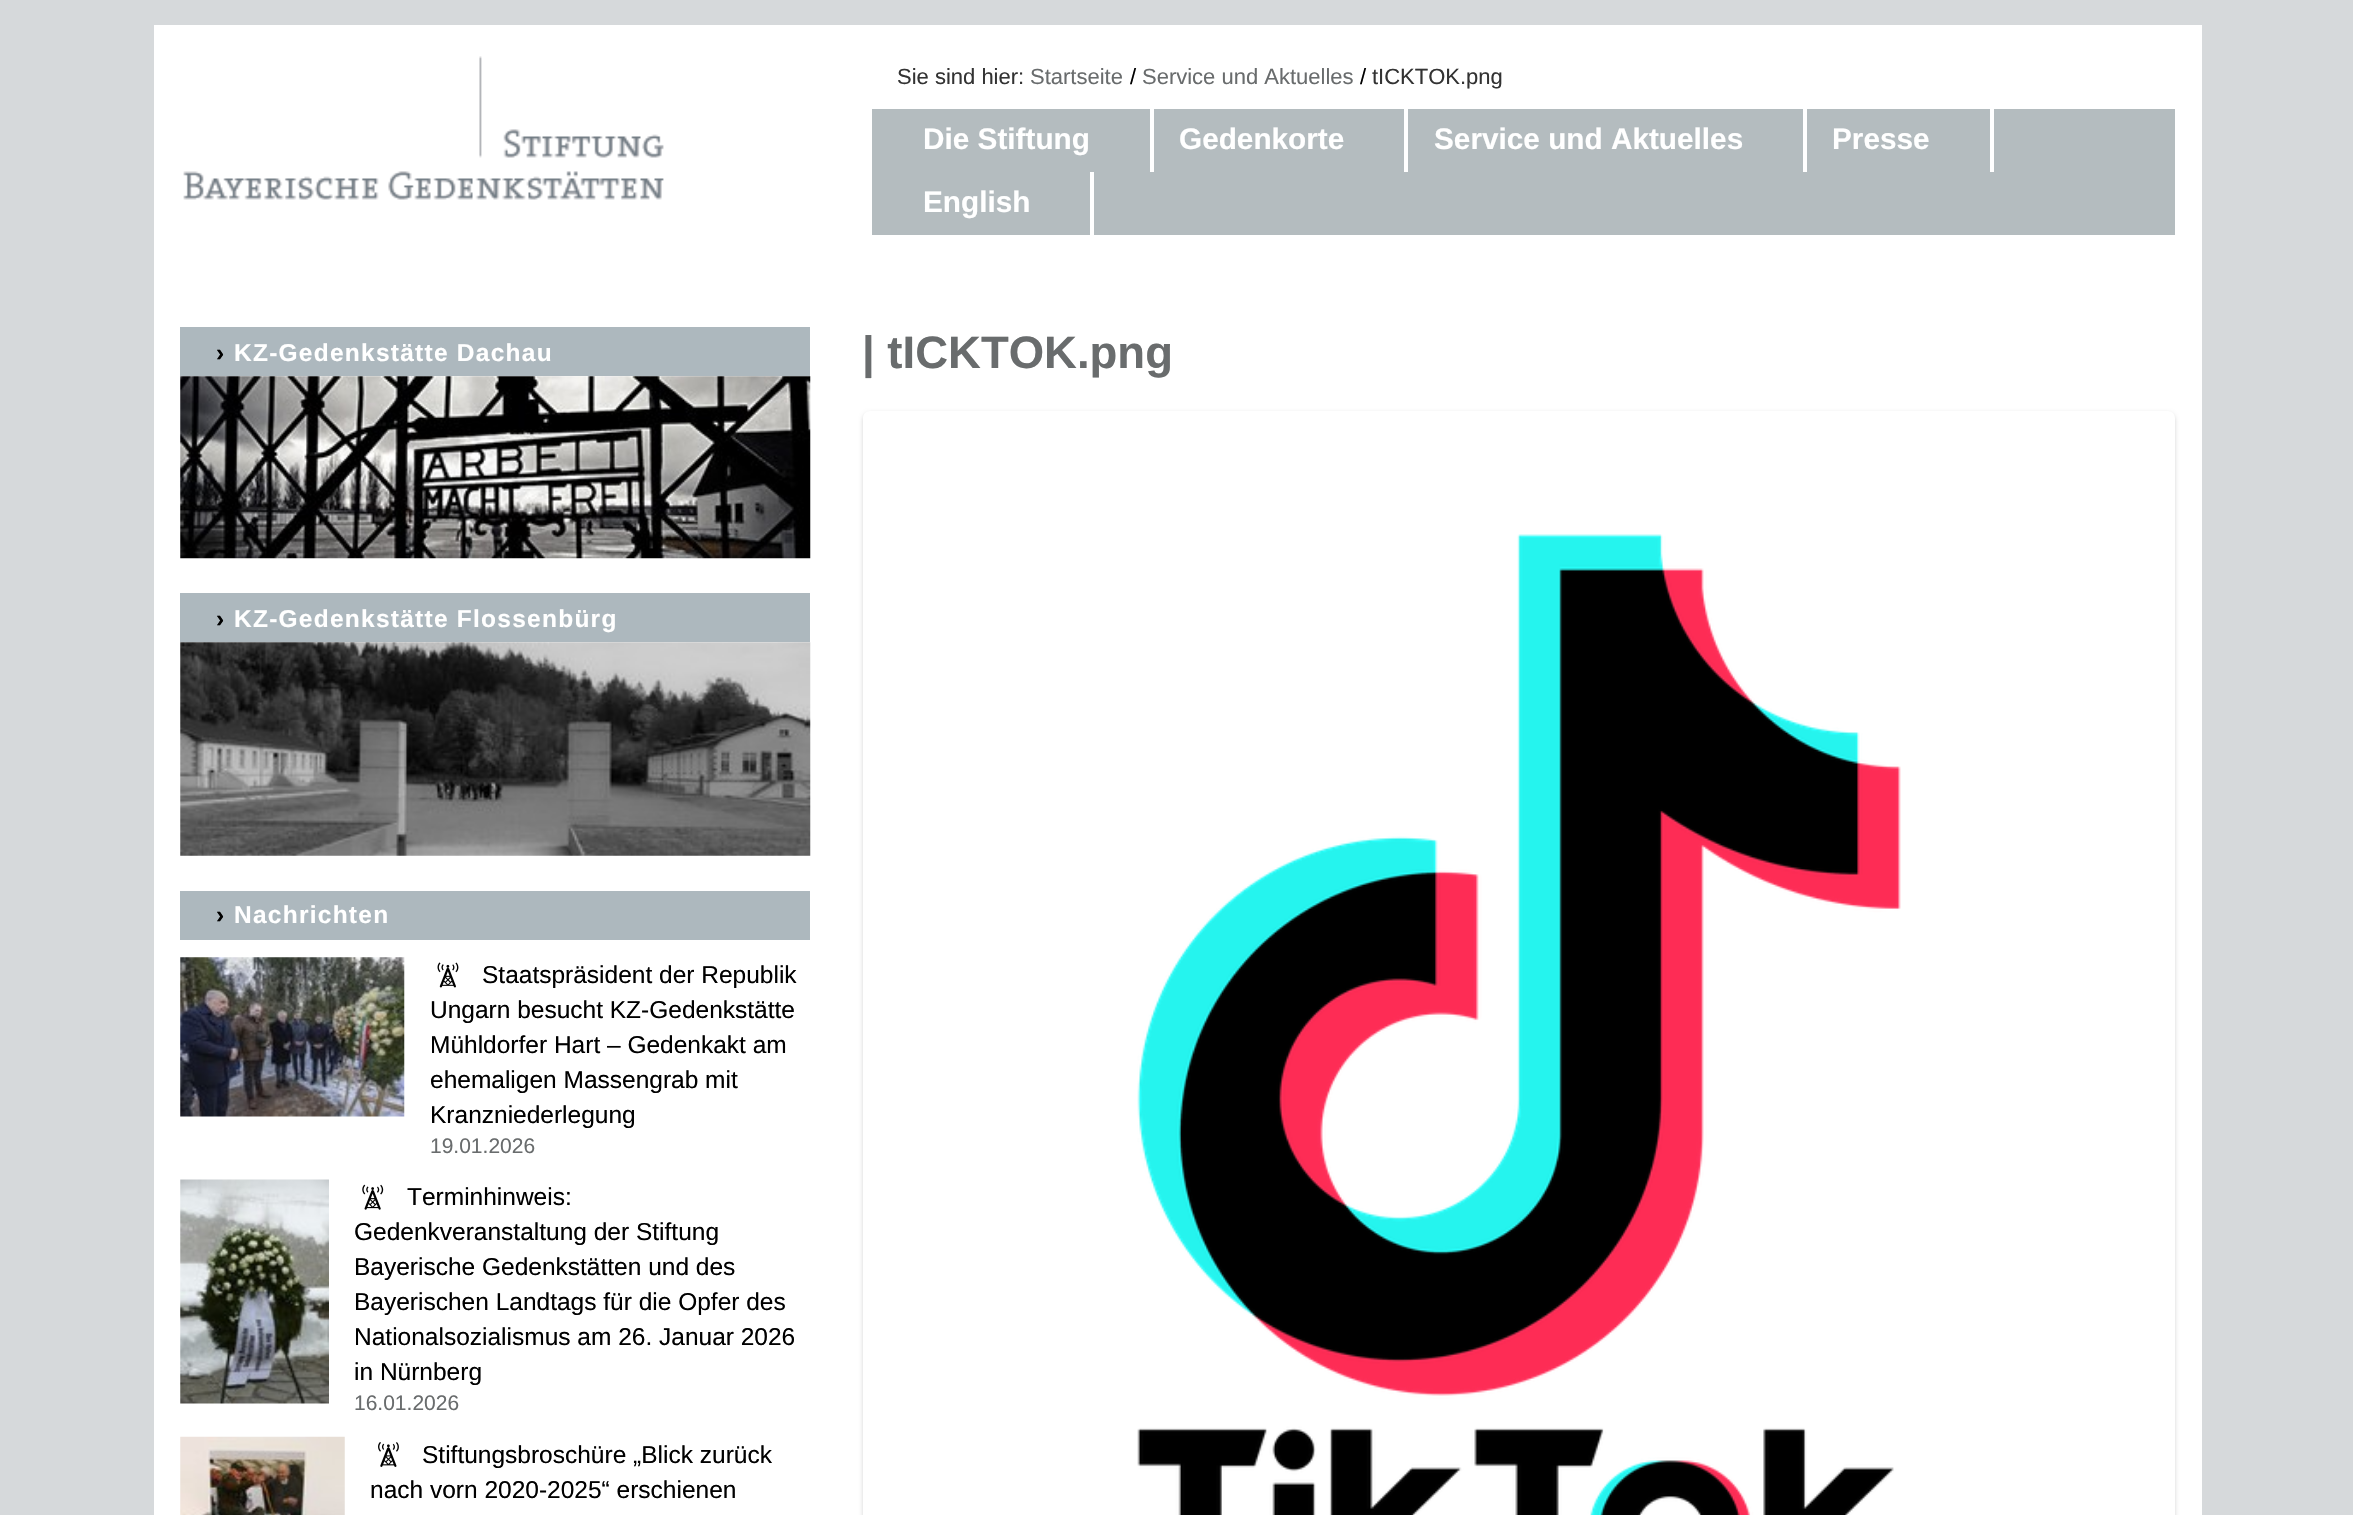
#include "include/core/SkBlurTypes.h"
#include "include/core/SkCanvas.h"
#include "include/core/SkData.h"
#include "include/core/SkFont.h"
#include "include/core/SkFontMgr.h"
#include "include/core/SkImage.h"
#include "include/core/SkMaskFilter.h"
#include "include/core/SkPaint.h"
#include "include/core/SkPathBuilder.h"
#include "include/core/SkTextBlob.h"
#include "include/effects/SkDashPathEffect.h"
#include "include/effects/SkGradientShader.h"
#include "include/utils/SkParsePath.h"

extern sk_sp<SkFontMgr> fontMgr;

void draw(SkCanvas* canvas) {
    SkPaint p;
    p.setAntiAlias(true);
    auto font = [&](const char* family, int weight, float size, bool italic = false) {
        SkFontStyle style(weight, SkFontStyle::kNormal_Width,
            italic ? SkFontStyle::kItalic_Slant : SkFontStyle::kUpright_Slant);
        SkFont result(fontMgr->matchFamilyStyle(family, style), size);
        result.setSubpixel(true);
        return result;
    };
    auto drawTracked = [&](const char* s, float x, float y, const SkFont& font, const SkPaint& ink, float letter, float word) {
        std::vector<SkGlyphID> glyphs(font.countText(s, strlen(s), SkTextEncoding::kUTF8));
        std::vector<float> xs(glyphs.size());
        font.textToGlyphs(s, strlen(s), SkTextEncoding::kUTF8, glyphs);
        font.getXPos(glyphs, xs, x);
        float extra = 0;
        for (size_t i = 0; i < glyphs.size(); i++) {
            xs[i] += extra;
            extra += letter + word * (glyphs[i] == font.unicharToGlyph(' '));
        }
        canvas->drawTextBlob(SkTextBlob::MakeFromPosHGlyphs(glyphs, xs, y, font), 0, 0, ink);
    };
    auto drawPhoto = [&](const char* path, float l, float t, float r, float b) {
        auto image = SkImages::DeferredFromEncodedData(SkData::MakeFromFileName(path));
        canvas->drawImageRect(image, SkRect::MakeLTRB(l, t, r, b), SkSamplingOptions());
    };
    canvas->clear(0xFFD6D9DB);
    p.setColor(0xFFFFFFFF);
    canvas->drawRect(SkRect::MakeLTRB(154, 25, 2202, 1515), p);
    drawPhoto("media/1.png", 183, 56, 664, 200);
    auto font1 = font("Liberation Sans", 400, 22);
    p.setColor(0xFF333333);
    canvas->drawString("Sie sind hier:", 897, 84, font1, p);
    p.setColor(0xFF696C6D);
    canvas->drawString("Startseite", 1030, 84, font1, p);
    p.setColor(0xFF000000);
    canvas->drawString("/", 1130, 84, font1, p);
    p.setColor(0xFF696C6D);
    canvas->drawString("Service und Aktuelles", 1142, 84, font1, p);
    p.setColor(0xFF000000);
    canvas->drawString("/", 1360, 84, font1, p);
    p.setColor(0xFF333333);
    canvas->drawString("tICKTOK.png", 1372, 84, font1, p);
    p.setColor(0xFFB4BCBF);
    canvas->drawRect(SkRect::MakeLTRB(872, 109, 2175, 235), p);
    p.setColor(0xFFFFFFFF);
    canvas->drawRect(SkRect::MakeLTRB(1150, 109, 1154, 172), p);
    auto font2 = font("Liberation Sans", 700, 29.75f);
    canvas->drawString("Die Stiftung", 923, 149, font2, p);
    canvas->drawRect(SkRect::MakeLTRB(1404, 109, 1408, 172), p);
    canvas->drawString("Gedenkorte", 1179, 149, font2, p);
    canvas->drawRect(SkRect::MakeLTRB(1803, 109, 1807, 172), p);
    canvas->drawString("Service und Aktuelles", 1434, 149, font2, p);
    canvas->drawRect(SkRect::MakeLTRB(1990, 109, 1994, 172), p);
    canvas->drawString("Presse", 1832, 149, font2, p);
    canvas->drawRect(SkRect::MakeLTRB(1090, 172, 1094, 235), p);
    canvas->drawString("English", 923, 212, font2, p);
    p.setColor(0xFFADB8BE);
    canvas->drawRect(SkRect::MakeLTRB(180, 327, 810, 376), p);
    auto font3 = font("Liberation Sans", 700, 24.5f);
    p.setColor(0xFF000000);
    drawTracked("›", 216, 361, font3, p, 1.25f, 0);
    p.setColor(0xFFFFFFFF);
    drawTracked("KZ-Gedenkstätte Dachau", 234, 361, font3, p, 1.25f, 0);
    drawPhoto("media/2.png", 180, 376, 811, 559);
    p.setColor(0xFFADB8BE);
    canvas->drawRect(SkRect::MakeLTRB(180, 593, 810, 642), p);
    p.setColor(0xFF000000);
    drawTracked("›", 216, 627, font3, p, 1.25f, 0);
    p.setColor(0xFFFFFFFF);
    drawTracked("KZ-Gedenkstätte Flossenbürg", 234, 627, font3, p, 1.25f, 0);
    drawPhoto("media/3.png", 180, 642, 811, 856);
    p.setColor(0xFFADB8BE);
    canvas->drawRect(SkRect::MakeLTRB(180, 891, 810, 940), p);
    p.setColor(0xFF000000);
    drawTracked("›", 216, 923, font3, p, 1.25f, 0);
    p.setColor(0xFFFFFFFF);
    drawTracked("Nachrichten", 234, 923, font3, p, 1.25f, 0);
    drawPhoto("media/4.png", 180, 957, 405, 1117);
    drawPhoto("media/5.png", 437, 962, 459, 988);
    auto font4 = font("Liberation Sans", 400, 24.5f);
    p.setColor(0xFF000000);
    {
        const struct { const char* s; float x, y; } items[] = {
            {"Staatspräsident der Republik", 482, 983},
            {"Ungarn besucht KZ-Gedenkstätte", 430, 1018},
            {"Mühldorfer Hart – Gedenkakt am", 430, 1053},
            {"ehemaligen Massengrab mit", 430, 1088},
            {"Kranzniederlegung", 430, 1123},
        };
        for (auto [s, x, y] : items) {
            canvas->drawString(s, x, y, font4, p);
        }
    }
    auto font5 = font("Liberation Sans", 400, 21);
    p.setColor(0xFF696C6D);
    canvas->drawString("19.01.2026", 430, 1153, font5, p);
    drawPhoto("media/6.png", 180, 1179, 329, 1404);
    drawPhoto("media/7.png", 362, 1184, 384, 1210);
    p.setColor(0xFF000000);
    {
        const struct { const char* s; float x, y; } items[] = {
            {"Terminhinweis:", 407, 1205},
            {"Gedenkveranstaltung der Stiftung", 354, 1240},
            {"Bayerische Gedenkstätten und des", 354, 1275},
            {"Bayerischen Landtags für die Opfer des", 354, 1310},
            {"Nationalsozialismus am 26. Januar 2026", 354, 1345},
            {"in Nürnberg", 354, 1380},
        };
        for (auto [s, x, y] : items) {
            canvas->drawString(s, x, y, font4, p);
        }
    }
    p.setColor(0xFF696C6D);
    canvas->drawString("16.01.2026", 354, 1410, font5, p);
    drawPhoto("media/8.png", 180, 1436, 345, 1515);
    drawPhoto("media/9.png", 378, 1442, 399, 1467);
    p.setColor(0xFF000000);
    canvas->drawString("Stiftungsbroschüre „Blick zurück", 422, 1463, font4, p);
    canvas->drawString("nach vorn 2020-2025“ erschienen", 370, 1498, font4, p);
    auto font6 = font("Liberation Sans", 700, 45.5f);
    p.setColor(0xFF696C6D);
    canvas->drawString("| tICKTOK.png", 862, 368, font6, p);
    canvas->save();
    canvas->clipPath(SkPathBuilder(SkPathFillType::kEvenOdd).moveTo(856, 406).lineTo(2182, 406).lineTo(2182, 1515).lineTo(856, 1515).close().moveTo(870, 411).lineTo(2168, 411).cubicTo(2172, 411, 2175, 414, 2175, 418).lineTo(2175, 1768).cubicTo(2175, 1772, 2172, 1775, 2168, 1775).lineTo(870, 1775).cubicTo(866, 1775, 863, 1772, 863, 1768).lineTo(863, 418).cubicTo(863, 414, 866, 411, 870, 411).close().detach(), true);
    p.setColor(0x2B000000);
    p.setMaskFilter(SkMaskFilter::MakeBlur(kNormal_SkBlurStyle, 2));
    canvas->drawRoundRect(SkRect::MakeLTRB(863, 413, 2175, 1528), 7, 7, p);
    p.setMaskFilter(nullptr);
    canvas->restore();
    drawPhoto("media/10.png", 1137, 534, 1901, 1515);
}
